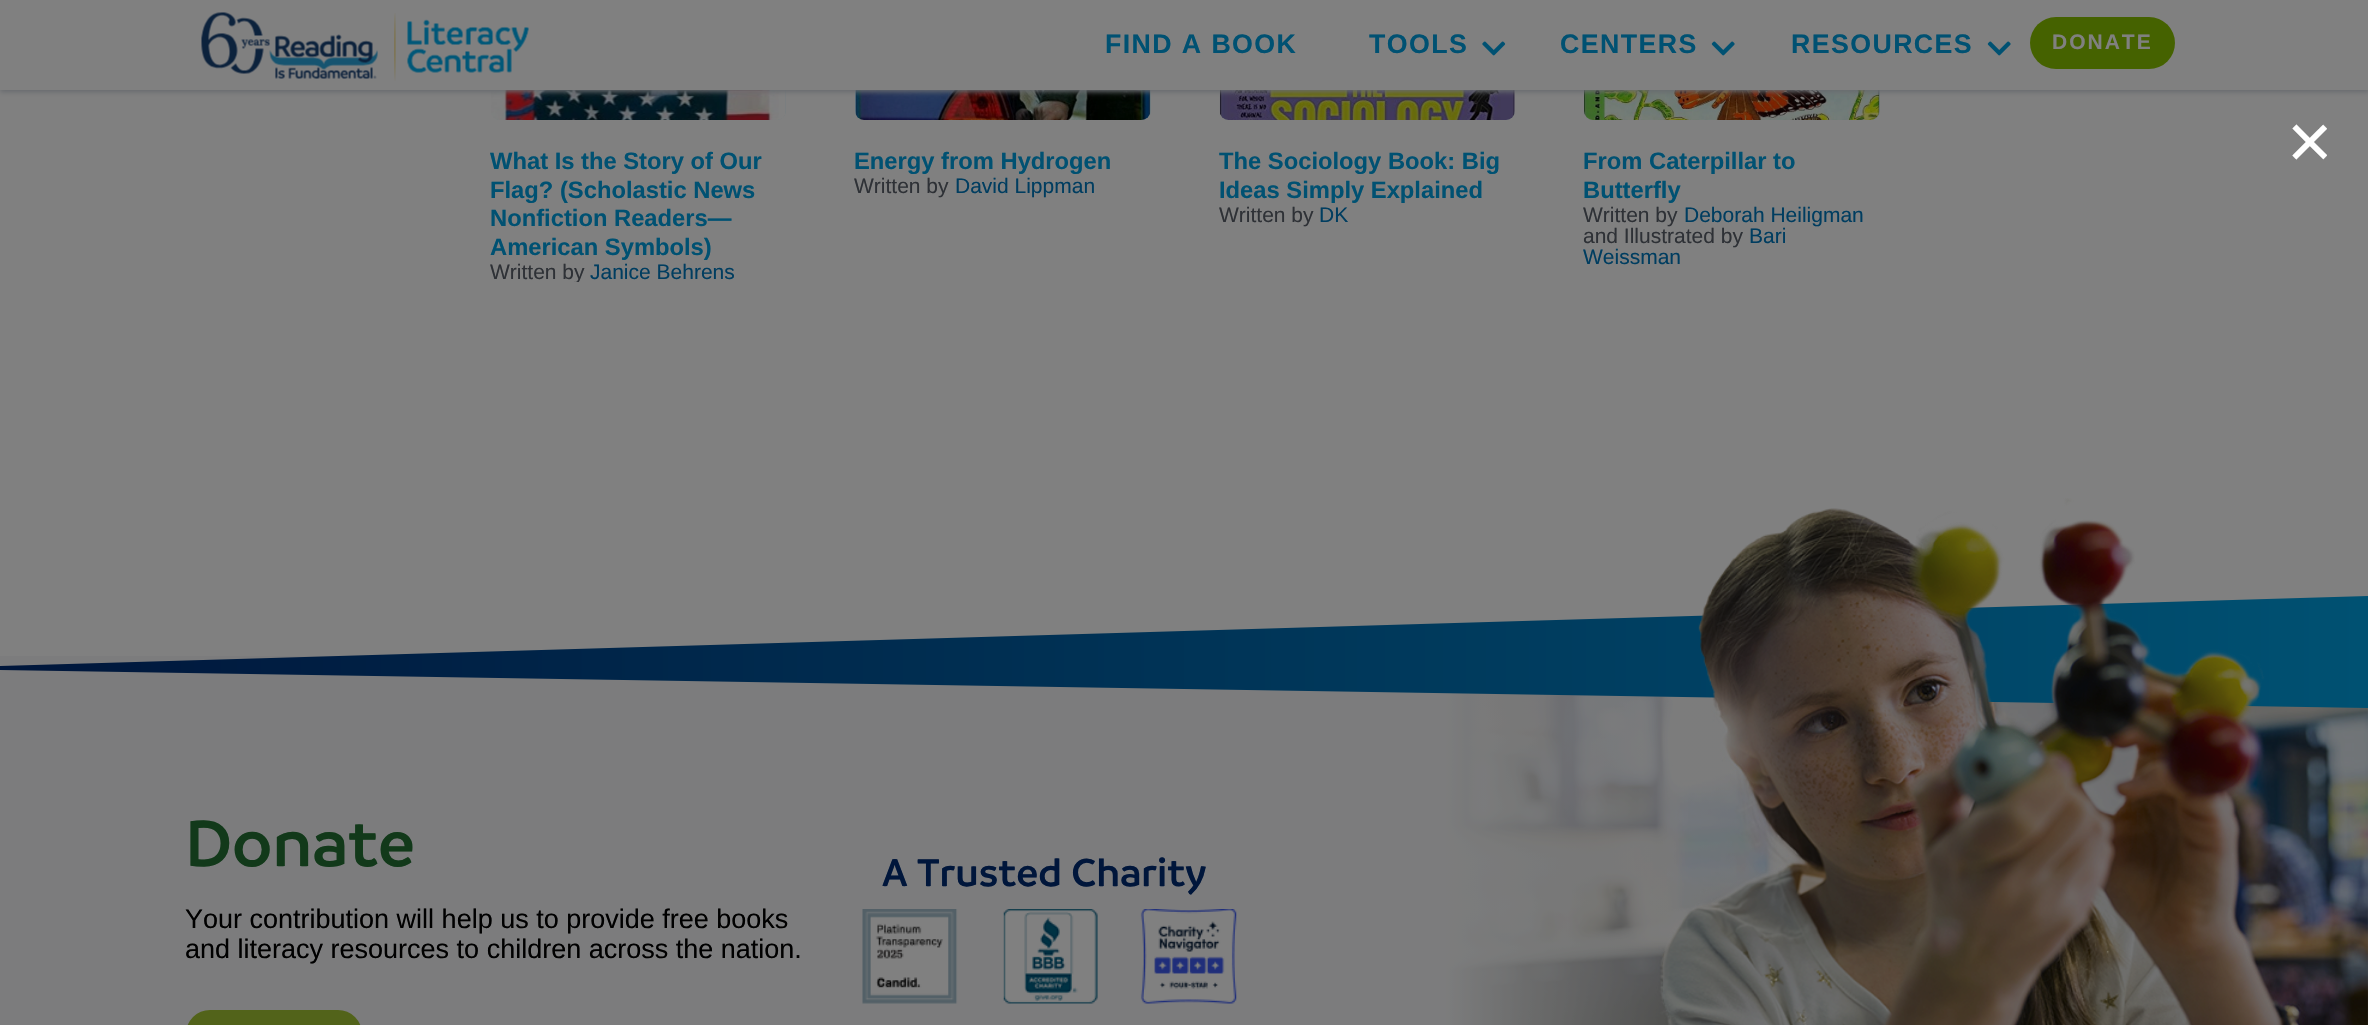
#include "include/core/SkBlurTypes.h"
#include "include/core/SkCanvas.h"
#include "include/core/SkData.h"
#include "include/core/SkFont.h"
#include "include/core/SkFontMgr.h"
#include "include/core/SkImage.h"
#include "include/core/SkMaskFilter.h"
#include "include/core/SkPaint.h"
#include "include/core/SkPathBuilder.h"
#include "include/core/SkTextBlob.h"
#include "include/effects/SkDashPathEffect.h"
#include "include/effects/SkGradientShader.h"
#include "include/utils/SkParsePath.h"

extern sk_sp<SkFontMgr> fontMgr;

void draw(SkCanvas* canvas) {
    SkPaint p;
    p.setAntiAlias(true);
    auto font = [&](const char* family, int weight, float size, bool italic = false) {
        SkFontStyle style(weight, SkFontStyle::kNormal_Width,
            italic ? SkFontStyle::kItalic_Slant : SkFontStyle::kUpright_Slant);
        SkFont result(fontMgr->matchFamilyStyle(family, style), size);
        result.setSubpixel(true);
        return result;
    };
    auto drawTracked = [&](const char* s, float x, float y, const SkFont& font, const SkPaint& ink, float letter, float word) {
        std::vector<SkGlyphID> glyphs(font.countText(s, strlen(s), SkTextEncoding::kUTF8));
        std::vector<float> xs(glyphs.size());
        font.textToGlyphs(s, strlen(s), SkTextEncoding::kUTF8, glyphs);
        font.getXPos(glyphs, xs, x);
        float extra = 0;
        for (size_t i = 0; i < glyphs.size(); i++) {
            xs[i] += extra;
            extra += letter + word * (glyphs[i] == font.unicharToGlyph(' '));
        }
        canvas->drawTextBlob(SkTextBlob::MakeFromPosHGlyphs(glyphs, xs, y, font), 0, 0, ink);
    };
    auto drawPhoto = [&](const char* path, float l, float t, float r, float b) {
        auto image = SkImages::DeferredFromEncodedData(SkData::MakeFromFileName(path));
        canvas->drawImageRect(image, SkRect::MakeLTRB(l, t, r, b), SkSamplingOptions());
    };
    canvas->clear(0xFF808080);
    p.setColor(0xFF707A7E);
    canvas->drawRoundRect(SkRect::MakeLTRB(491, -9, 786, 120), 9, 9, p);
    drawPhoto("media/6.png", 491, 90, 786, 120);
    canvas->drawRoundRect(SkRect::MakeLTRB(855, -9, 1151, 120), 9, 9, p);
    drawPhoto("media/7.png", 855, 90, 1151, 120);
    canvas->drawRoundRect(SkRect::MakeLTRB(1220, -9, 1515, 120), 9, 9, p);
    drawPhoto("media/8.png", 1219, 90, 1515, 120);
    canvas->drawRoundRect(SkRect::MakeLTRB(1584, -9, 1880, 120), 9, 9, p);
    drawPhoto("media/9.png", 1584, 90, 1880, 120);
    p.setColor(0xFF676A6E);
    p.setMaskFilter(SkMaskFilter::MakeBlur(kNormal_SkBlurStyle, 2.5f));
    canvas->drawRect(SkRect::MakeLTRB(0, 2, 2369, 92), p);
    p.setMaskFilter(nullptr);
    p.setColor(0xFF808080);
    canvas->drawRect(SkRect::MakeLTRB(0, 0, 2368, 90), p);
    drawPhoto("media/1.png", 201, 12, 378, 79);
    drawPhoto("media/2.png", 394, 13, 396, 81);
    drawPhoto("media/3.png", 407, 19, 529, 73);
    auto font1 = font("Liberation Sans", 700, 26.75f);
    p.setColor(0xFF005172);
    drawTracked("FIND A BOOK", 1105, 53, font1, p, 1.4f, 0);
    drawTracked("TOOLS", 1369, 53, font1, p, 1.4f, 0);
    drawPhoto("media/4.png", 1482, 41, 1506, 56);
    drawTracked("CENTERS", 1560, 53, font1, p, 1.4f, 0);
    drawPhoto("media/5.png", 1711, 41, 1735, 56);
    drawTracked("RESOURCES", 1791, 53, font1, p, 1.4f, 0);
    drawPhoto("media/5.png", 1987, 41, 2011, 56);
    p.setColor(0xFF456200);
    canvas->drawRoundRect(SkRect::MakeLTRB(2030, 17, 2175, 69), 26, 26, p);
    auto font2 = font("Liberation Sans", 700, 21);
    p.setColor(0xFF808080);
    drawTracked("DONATE", 2052, 49, font2, p, 2, 0);
    auto font3 = font("Liberation Sans", 400, 78);
    p.setColor(0xFFFFFFFF);
    canvas->drawString("×", 2287, 168, font3, p);
    auto font4 = font("Liberation Sans", 700, 23.75f);
    p.setColor(0xFF005172);
    {
        const struct { const char* s; float x, y; } items[] = {
            {"What Is the Story of Our", 490, 169},
            {"Flag? (Scholastic News", 490, 198},
            {"Nonfiction Readers—", 490, 226},
            {"American Symbols)", 490, 255},
        };
        for (auto [s, x, y] : items) {
            canvas->drawString(s, x, y, font4, p);
        }
    }
    canvas->save();
    canvas->clipRect(SkRect::MakeLTRB(456, 0, 1914, 282));
    auto font5 = font("Liberation Sans", 400, 21);
    p.setColor(0xFF2E3136);
    canvas->drawString("Written by", 490, 279, font5, p);
    canvas->restore();
    p.setColor(0xFF003D60);
    canvas->drawString("Janice Behrens", 590, 279, font5, p);
    p.setColor(0xFF005172);
    canvas->drawString("Energy from Hydrogen", 854, 169, font4, p);
    p.setColor(0xFF2E3136);
    canvas->drawString("Written by", 854, 193, font5, p);
    p.setColor(0xFF003D60);
    canvas->drawString("David Lippman", 955, 193, font5, p);
    p.setColor(0xFF005172);
    canvas->drawString("The Sociology Book: Big", 1219, 169, font4, p);
    canvas->drawString("Ideas Simply Explained", 1219, 198, font4, p);
    p.setColor(0xFF2E3136);
    canvas->drawString("Written by", 1219, 222, font5, p);
    p.setColor(0xFF003D60);
    canvas->drawString("DK", 1319, 222, font5, p);
    p.setColor(0xFF005172);
    canvas->drawString("From Caterpillar to", 1583, 169, font4, p);
    canvas->drawString("Butterfly", 1583, 198, font4, p);
    p.setColor(0xFF2E3136);
    canvas->drawString("Written by", 1583, 222, font5, p);
    p.setColor(0xFF003D60);
    canvas->drawString("Deborah Heiligman", 1684, 222, font5, p);
    p.setColor(0xFF2E3136);
    canvas->drawString("and Illustrated by", 1583, 243, font5, p);
    p.setColor(0xFF003D60);
    canvas->drawString("Bari", 1749, 243, font5, p);
    canvas->drawString("Weissman", 1583, 264, font5, p);
    drawPhoto("media/10.png", 0, 656, 2368, 1025);
    {
        const SkColor colors[] = {0xFF005172, 0xFF00163B};
        const float stops[] = {0, 1};
        const SkPoint ends[] = {{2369, 652}, {0, 652}};
        p.setShader(SkGradientShader::MakeLinear(ends, colors, stops, 2, SkTileMode::kClamp));
        p.setAlpha(255);
    }
    canvas->drawPath(SkPathBuilder(SkPathFillType::kEvenOdd).moveTo(0, 666).lineTo(2368, 596).lineTo(2368, 708).lineTo(0, 670).close().detach(), p);
    drawPhoto("media/11.png", 1660, 498, 2299, 1025);
    auto font6 = font("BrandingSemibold", 400, 70);
    p.setShader(nullptr);
    p.setColor(0xFF12391A);
    canvas->drawString("Donate", 185, 866, font6, p);
    auto font7 = font("Liberation Sans", 400, 27);
    p.setColor(0xFF000000);
    canvas->drawString("Your contribution will help us to provide free books", 185, 928, font7, p);
    canvas->drawString("and literacy resources to children across the nation.", 185, 958, font7, p);
    p.setColor(0xFF52631A);
    canvas->drawRoundRect(SkRect::MakeLTRB(186, 1010, 362, 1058), 33, 33, p);
    auto font8 = font("BrandingSemibold", 400, 41.75f);
    p.setColor(0xFF00163B);
    canvas->drawString("A Trusted Charity", 882, 886, font8, p);
    drawPhoto("media/12.png", 862, 909, 1237, 1004);
}
